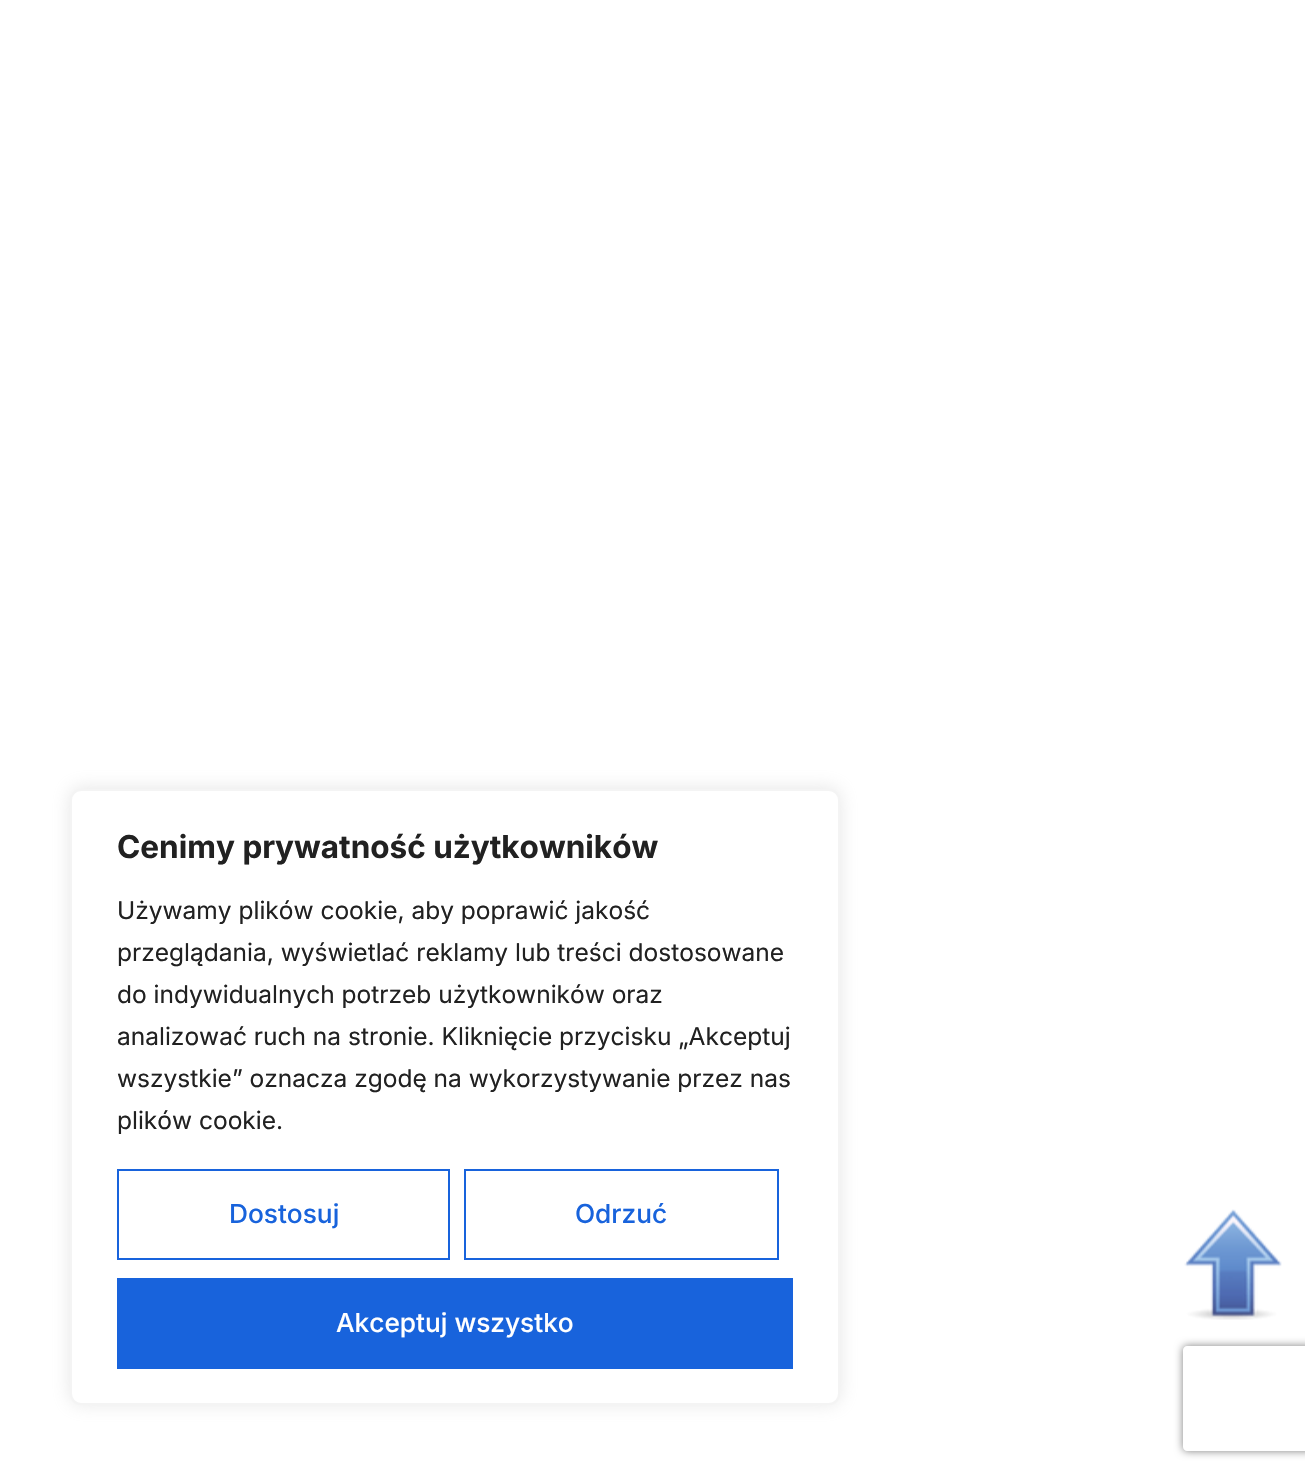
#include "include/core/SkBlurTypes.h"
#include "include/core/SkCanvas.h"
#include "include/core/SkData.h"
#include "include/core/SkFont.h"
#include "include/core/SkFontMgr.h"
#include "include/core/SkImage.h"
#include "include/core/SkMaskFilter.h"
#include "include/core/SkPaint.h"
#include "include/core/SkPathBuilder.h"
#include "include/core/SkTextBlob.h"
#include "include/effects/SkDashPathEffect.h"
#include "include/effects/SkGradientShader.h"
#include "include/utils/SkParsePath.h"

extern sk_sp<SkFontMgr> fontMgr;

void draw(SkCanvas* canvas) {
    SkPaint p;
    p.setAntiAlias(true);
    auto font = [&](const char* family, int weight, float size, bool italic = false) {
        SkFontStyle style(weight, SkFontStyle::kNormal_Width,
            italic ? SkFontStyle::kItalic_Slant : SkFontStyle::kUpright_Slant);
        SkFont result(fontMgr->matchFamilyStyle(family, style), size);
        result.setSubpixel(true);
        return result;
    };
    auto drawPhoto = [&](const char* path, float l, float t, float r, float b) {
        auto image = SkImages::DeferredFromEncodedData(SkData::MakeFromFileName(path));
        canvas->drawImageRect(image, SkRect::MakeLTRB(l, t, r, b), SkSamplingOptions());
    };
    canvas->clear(0xFFFFFFFF);
    p.setColor(0x4DACABAB);
    p.setMaskFilter(SkMaskFilter::MakeBlur(kNormal_SkBlurStyle, 9));
    canvas->drawRoundRect(SkRect::MakeLTRB(70, 788, 840, 1404), 11, 11, p);
    p.setMaskFilter(nullptr);
    p.setColor(0xFFFFFFFF);
    canvas->drawRoundRect(SkRect::MakeLTRB(71, 790, 839, 1404), 10, 10, p);
    p.setStyle(SkPaint::kStroke_Style);
    p.setStrokeWidth(2);
    p.setColor(0xFFF4F4F4);
    canvas->drawRoundRect(SkRect::MakeLTRB(71, 790, 839, 1404), 10, 10, p);
    auto font1 = font("Inter", 700, 31.5f);
    p.setStyle(SkPaint::kFill_Style);
    p.setColor(0xFF212121);
    canvas->drawString("Cenimy prywatność użytkowników", 117, 858, font1, p);
    auto font2 = font("Inter", 400, 24.5f);
    {
        const struct { const char* s; float x, y; } items[] = {
            {"Używamy plików cookie, aby poprawić jakość", 117, 919},
            {"przeglądania, wyświetlać reklamy lub treści dostosowane", 117, 961},
            {"do indywidualnych potrzeb użytkowników oraz", 117, 1003},
            {"analizować ruch na stronie. Kliknięcie przycisku „Akceptuj", 117, 1045},
            {"wszystkie” oznacza zgodę na wykorzystywanie przez nas", 117, 1087},
            {"plików cookie.", 117, 1129},
        };
        for (auto [s, x, y] : items) {
            canvas->drawString(s, x, y, font2, p);
        }
    }
    p.setStyle(SkPaint::kStroke_Style);
    p.setColor(0xFF1863DC);
    canvas->drawRect(SkRect::MakeLTRB(118, 1170, 449, 1259), p);
    auto font3 = font("Inter", 500, 26.25f);
    p.setStyle(SkPaint::kFill_Style);
    canvas->drawString("Dostosuj", 229, 1223, font3, p);
    p.setStyle(SkPaint::kStroke_Style);
    canvas->drawRect(SkRect::MakeLTRB(465, 1170, 778, 1259), p);
    p.setStyle(SkPaint::kFill_Style);
    canvas->drawString("Odrzuć", 575, 1223, font3, p);
    canvas->drawRect(SkRect::MakeLTRB(117, 1278, 793, 1369), p);
    p.setColor(0xFFFFFFFF);
    canvas->drawString("Akceptuj wszystko", 336, 1332, font3, p);
    drawPhoto("media/1.png", 1184, 1209, 1282, 1320);
    canvas->save();
    canvas->clipPath(SkPathBuilder(SkPathFillType::kEvenOdd).moveTo(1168, 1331).lineTo(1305, 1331).lineTo(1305, 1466).lineTo(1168, 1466).close().moveTo(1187, 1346).lineTo(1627, 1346).cubicTo(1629, 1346, 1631, 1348, 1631, 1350).lineTo(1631, 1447).cubicTo(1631, 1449, 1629, 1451, 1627, 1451).lineTo(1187, 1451).cubicTo(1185, 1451, 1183, 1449, 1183, 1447).lineTo(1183, 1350).cubicTo(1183, 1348, 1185, 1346, 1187, 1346).close().detach(), true);
    p.setColor(0xFF808080);
    p.setMaskFilter(SkMaskFilter::MakeBlur(kNormal_SkBlurStyle, 4.5f));
    canvas->drawRoundRect(SkRect::MakeLTRB(1183, 1346, 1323, 1451), 4, 4, p);
    p.setMaskFilter(nullptr);
    canvas->restore();
}
